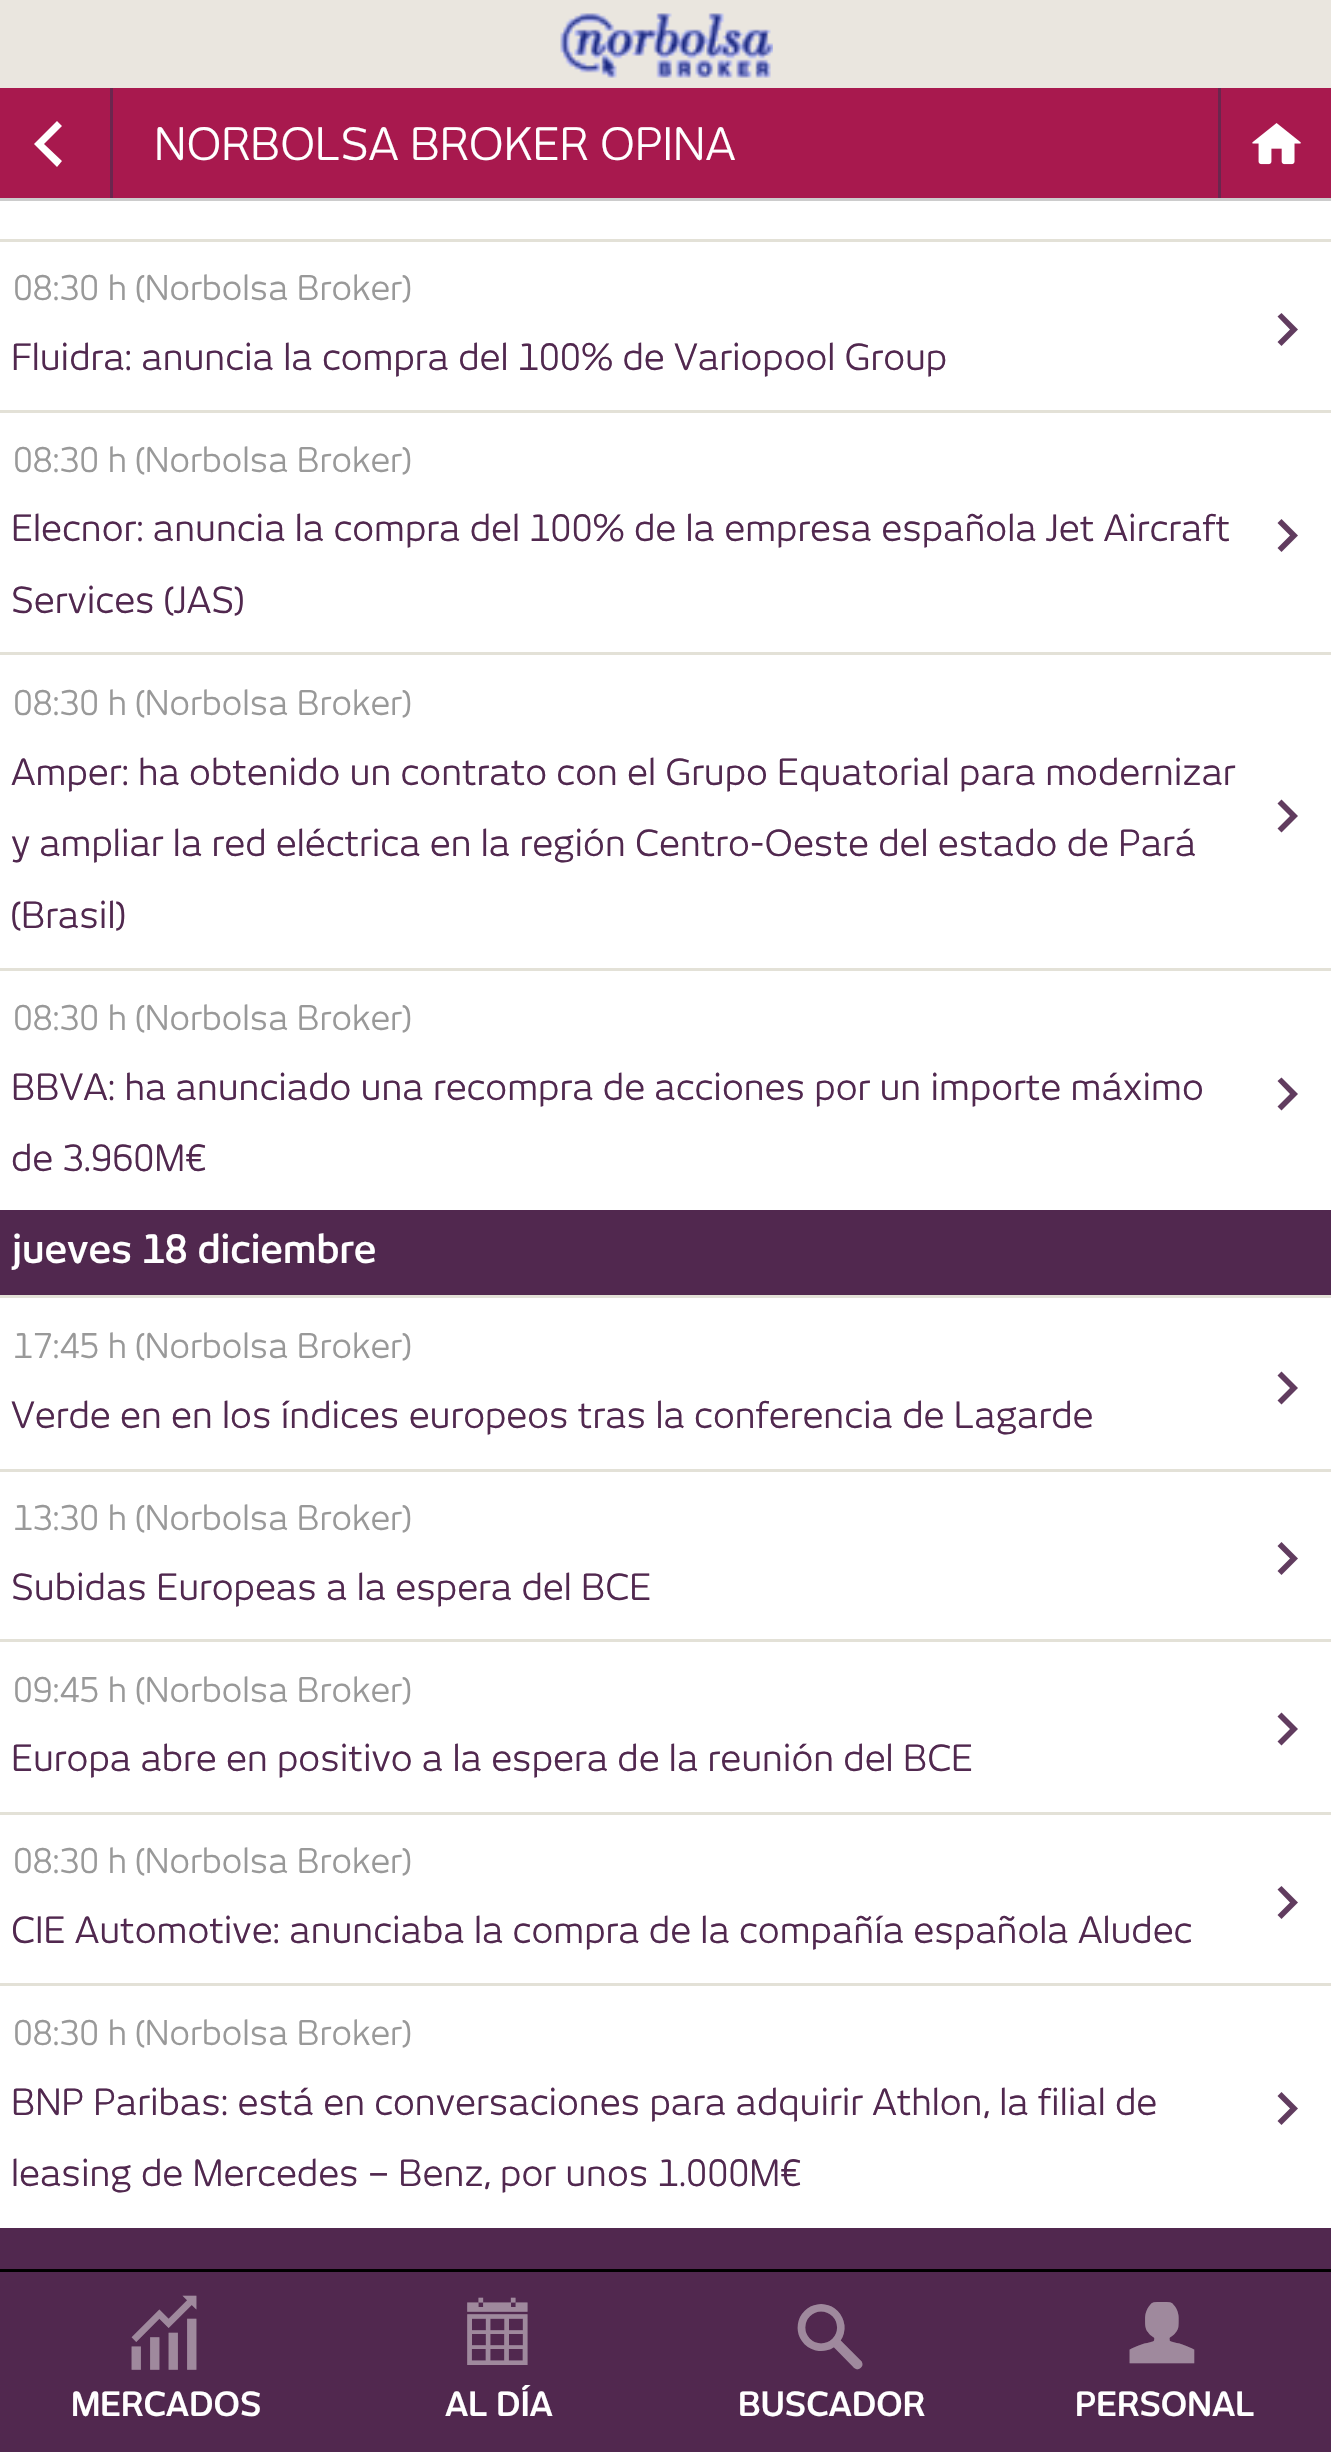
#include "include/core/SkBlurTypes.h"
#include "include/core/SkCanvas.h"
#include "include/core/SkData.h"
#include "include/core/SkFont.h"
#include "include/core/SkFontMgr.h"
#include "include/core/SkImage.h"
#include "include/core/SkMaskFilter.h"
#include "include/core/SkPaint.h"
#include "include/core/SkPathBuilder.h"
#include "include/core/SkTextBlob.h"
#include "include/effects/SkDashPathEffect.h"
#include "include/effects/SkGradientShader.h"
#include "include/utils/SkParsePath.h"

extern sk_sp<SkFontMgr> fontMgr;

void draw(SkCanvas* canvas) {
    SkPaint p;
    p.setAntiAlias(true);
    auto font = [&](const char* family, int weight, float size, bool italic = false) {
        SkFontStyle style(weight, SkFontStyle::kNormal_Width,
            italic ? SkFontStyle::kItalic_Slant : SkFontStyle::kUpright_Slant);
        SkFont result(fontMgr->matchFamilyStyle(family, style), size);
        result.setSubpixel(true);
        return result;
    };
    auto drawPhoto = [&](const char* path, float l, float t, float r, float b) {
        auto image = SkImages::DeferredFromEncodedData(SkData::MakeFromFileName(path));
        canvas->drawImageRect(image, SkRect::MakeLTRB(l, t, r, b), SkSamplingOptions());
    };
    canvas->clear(0xFFFFFFFF);
    p.setColor(0xFFEAE6DF);
    canvas->drawRect(SkRect::MakeLTRB(0, 0, 1331, 88), p);
    drawPhoto("media/1.png", 560, 13, 773, 78);
    {
        const struct { float l, t, r, b; SkColor color; } items[] = {
            {0, 88, 1331, 198, 0xFFA8194E},
            {0, 198, 1331, 201, 0xFFCCCCCC},
            {110, 88, 113, 198, 0xFF6B264E},
        };
        for (auto [l, t, r, b, color] : items) {
            p.setColor(color);
            canvas->drawRect(SkRect::MakeLTRB(l, t, r, b), p);
        }
    }
    p.setColor(0xFFFFFFFF);
    canvas->drawPath(SkPathBuilder().moveTo(62, 161).lineTo(57, 167).lineTo(34, 144).lineTo(57, 121).lineTo(62, 126).lineTo(44, 144).close().detach(), p);
    auto font1 = font("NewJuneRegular", 400, 44);
    canvas->drawString("NORBOLSA BROKER OPINA", 154, 160, font1, p);
    p.setColor(0xFF6B264E);
    canvas->drawRect(SkRect::MakeLTRB(1218, 88, 1221, 198), p);
    drawPhoto("media/2.png", 1252, 123, 1301, 165);
    p.setColor(0xFFE3E1D7);
    canvas->drawRect(SkRect::MakeLTRB(0, 239, 1331, 242), p);
    auto font2 = font("NewJuneRegular", 400, 33.5f);
    p.setColor(0xFF999999);
    canvas->drawString("08:30 h (Norbolsa Broker)", 13, 300, font2, p);
    auto font3 = font("NewJuneRegular", 400, 35.75f);
    p.setColor(0xFF51284F);
    canvas->drawString("Fluidra: anuncia la compra del 100% de Variopool Group", 11, 370, font3, p);
    p.setColor(0xFF613C5F);
    canvas->drawPath(SkPathBuilder().moveTo(1277.5f, 342).lineTo(1290, 329.5f).lineTo(1277.5f, 316.5f).lineTo(1281.5f, 313).lineTo(1298, 329.5f).lineTo(1281.5f, 346).close().detach(), p);
    p.setColor(0xFFE3E1D7);
    canvas->drawRect(SkRect::MakeLTRB(0, 410, 1331, 413), p);
    p.setColor(0xFF999999);
    canvas->drawString("08:30 h (Norbolsa Broker)", 13, 472, font2, p);
    p.setColor(0xFF51284F);
    canvas->drawString("Elecnor: anuncia la compra del 100% de la empresa española Jet Aircraft", 11, 541, font3, p);
    canvas->drawString("Services (JAS)", 11, 613, font3, p);
    p.setColor(0xFF613C5F);
    canvas->drawPath(SkPathBuilder().moveTo(1277.5f, 548).lineTo(1290, 535.5f).lineTo(1277.5f, 523).lineTo(1281.5f, 519).lineTo(1298, 535.5f).lineTo(1281.5f, 552).close().detach(), p);
    p.setColor(0xFFE3E1D7);
    canvas->drawRect(SkRect::MakeLTRB(0, 652, 1331, 655), p);
    p.setColor(0xFF999999);
    canvas->drawString("08:30 h (Norbolsa Broker)", 13, 715, font2, p);
    p.setColor(0xFF51284F);
    {
        const struct { const char* s; float x, y; } items[] = {
            {"Amper: ha obtenido un contrato con el Grupo Equatorial para modernizar", 11, 785},
            {"y ampliar la red eléctrica en la región Centro-Oeste del estado de Pará", 11, 856},
            {"(Brasil)", 11, 928},
        };
        for (auto [s, x, y] : items) {
            canvas->drawString(s, x, y, font3, p);
        }
    }
    p.setColor(0xFF613C5F);
    canvas->drawPath(SkPathBuilder().moveTo(1277.5f, 828.5f).lineTo(1290, 816).lineTo(1277.5f, 803.5f).lineTo(1281.5f, 799.5f).lineTo(1298, 816).lineTo(1281.5f, 832.5f).close().detach(), p);
    p.setColor(0xFFE3E1D7);
    canvas->drawRect(SkRect::MakeLTRB(0, 968, 1331, 971), p);
    p.setColor(0xFF999999);
    canvas->drawString("08:30 h (Norbolsa Broker)", 13, 1030, font2, p);
    p.setColor(0xFF51284F);
    canvas->drawString("BBVA: ha anunciado una recompra de acciones por un importe máximo", 11, 1100, font3, p);
    canvas->drawString("de 3.960M€", 11, 1171, font3, p);
    p.setColor(0xFF613C5F);
    canvas->drawPath(SkPathBuilder().moveTo(1277.5f, 1106.5f).lineTo(1290, 1094).lineTo(1277.5f, 1081).lineTo(1281.5f, 1077.5f).lineTo(1298, 1094).lineTo(1281.5f, 1110.5f).close().detach(), p);
    p.setColor(0xFF51284F);
    canvas->drawRect(SkRect::MakeLTRB(0, 1210, 1331, 1295), p);
    auto font4 = font("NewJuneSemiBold", 600, 38.5f);
    p.setColor(0xFFFFFFFF);
    canvas->drawString("jueves 18 diciembre", 12, 1263, font4, p);
    p.setColor(0xFFE3E1D7);
    canvas->drawRect(SkRect::MakeLTRB(0, 1295, 1331, 1298), p);
    p.setColor(0xFF999999);
    canvas->drawString("17:45 h (Norbolsa Broker)", 13, 1358, font2, p);
    p.setColor(0xFF51284F);
    canvas->drawString("Verde en en los índices europeos tras la conferencia de Lagarde", 11, 1428, font3, p);
    p.setColor(0xFF613C5F);
    canvas->drawPath(SkPathBuilder().moveTo(1277.5f, 1400.5f).lineTo(1290, 1388).lineTo(1277.5f, 1375.5f).lineTo(1281.5f, 1371.5f).lineTo(1298, 1388).lineTo(1281.5f, 1404.5f).close().detach(), p);
    p.setColor(0xFFE3E1D7);
    canvas->drawRect(SkRect::MakeLTRB(0, 1469, 1331, 1472), p);
    p.setColor(0xFF999999);
    canvas->drawString("13:30 h (Norbolsa Broker)", 13, 1530, font2, p);
    p.setColor(0xFF51284F);
    canvas->drawString("Subidas Europeas a la espera del BCE", 11, 1600, font3, p);
    p.setColor(0xFF613C5F);
    canvas->drawPath(SkPathBuilder().moveTo(1277.5f, 1571).lineTo(1290, 1558.5f).lineTo(1277.5f, 1546).lineTo(1281.5f, 1542).lineTo(1298, 1558.5f).lineTo(1281.5f, 1575).close().detach(), p);
    p.setColor(0xFFE3E1D7);
    canvas->drawRect(SkRect::MakeLTRB(0, 1639, 1331, 1642), p);
    p.setColor(0xFF999999);
    canvas->drawString("09:45 h (Norbolsa Broker)", 13, 1702, font2, p);
    p.setColor(0xFF51284F);
    canvas->drawString("Europa abre en positivo a la espera de la reunión del BCE", 11, 1771, font3, p);
    p.setColor(0xFF613C5F);
    canvas->drawPath(SkPathBuilder().moveTo(1277.5f, 1741.5f).lineTo(1290, 1729).lineTo(1277.5f, 1716.5f).lineTo(1281.5f, 1712.5f).lineTo(1298, 1729).lineTo(1281.5f, 1745.5f).close().detach(), p);
    p.setColor(0xFFE3E1D7);
    canvas->drawRect(SkRect::MakeLTRB(0, 1812, 1331, 1815), p);
    p.setColor(0xFF999999);
    canvas->drawString("08:30 h (Norbolsa Broker)", 13, 1873, font2, p);
    p.setColor(0xFF51284F);
    canvas->drawString("CIE Automotive: anunciaba la compra de la compañía española Aludec", 11, 1943, font3, p);
    p.setColor(0xFF613C5F);
    canvas->drawPath(SkPathBuilder().moveTo(1277.5f, 1915).lineTo(1290, 1902.5f).lineTo(1277.5f, 1889.5f).lineTo(1281.5f, 1886).lineTo(1298, 1902.5f).lineTo(1281.5f, 1919).close().detach(), p);
    p.setColor(0xFFE3E1D7);
    canvas->drawRect(SkRect::MakeLTRB(0, 1983, 1331, 1986), p);
    p.setColor(0xFF999999);
    canvas->drawString("08:30 h (Norbolsa Broker)", 13, 2045, font2, p);
    p.setColor(0xFF51284F);
    canvas->drawString("BNP Paribas: está en conversaciones para adquirir Athlon, la filial de", 11, 2115, font3, p);
    canvas->drawString("leasing de Mercedes – Benz, por unos 1.000M€", 11, 2186, font3, p);
    p.setColor(0xFF613C5F);
    canvas->drawPath(SkPathBuilder().moveTo(1277.5f, 2121).lineTo(1290, 2108.5f).lineTo(1277.5f, 2096).lineTo(1281.5f, 2092).lineTo(1298, 2108.5f).lineTo(1281.5f, 2125).close().detach(), p);
    {
        const struct { float l, t, r, b; SkColor color; } items[] = {
            {0, 2228, 1331, 2269, 0xFF51284F},
            {0, 2272, 1331, 2452, 0xFF51284F},
            {0, 2269, 1331, 2272, 0xFF000000},
        };
        for (auto [l, t, r, b, color] : items) {
            p.setColor(color);
            canvas->drawRect(SkRect::MakeLTRB(l, t, r, b), p);
        }
    }
    auto font5 = font("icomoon", 400, 74);
    p.setColor(0xFF9F899D);
    canvas->drawString("\"", 127, 2365, font5, p);
    auto font6 = font("NewJuneSemiBold", 600, 33);
    p.setColor(0xFFFFFFFF);
    canvas->drawString("MERCADOS", 71, 2416, font6, p);
    p.setColor(0xFF9F899D);
    canvas->drawString("#", 460, 2365, font5, p);
    p.setColor(0xFFFFFFFF);
    canvas->drawString("AL DÍA", 445, 2416, font6, p);
    p.setColor(0xFF9F899D);
    canvas->drawString("$", 793, 2369, font5, p);
    p.setColor(0xFFFFFFFF);
    canvas->drawString("BUSCADOR", 738, 2416, font6, p);
    p.setColor(0xFF9F899D);
    canvas->drawString("&", 1125, 2365, font5, p);
    p.setColor(0xFFFFFFFF);
    canvas->drawString("PERSONAL", 1075, 2416, font6, p);
}
